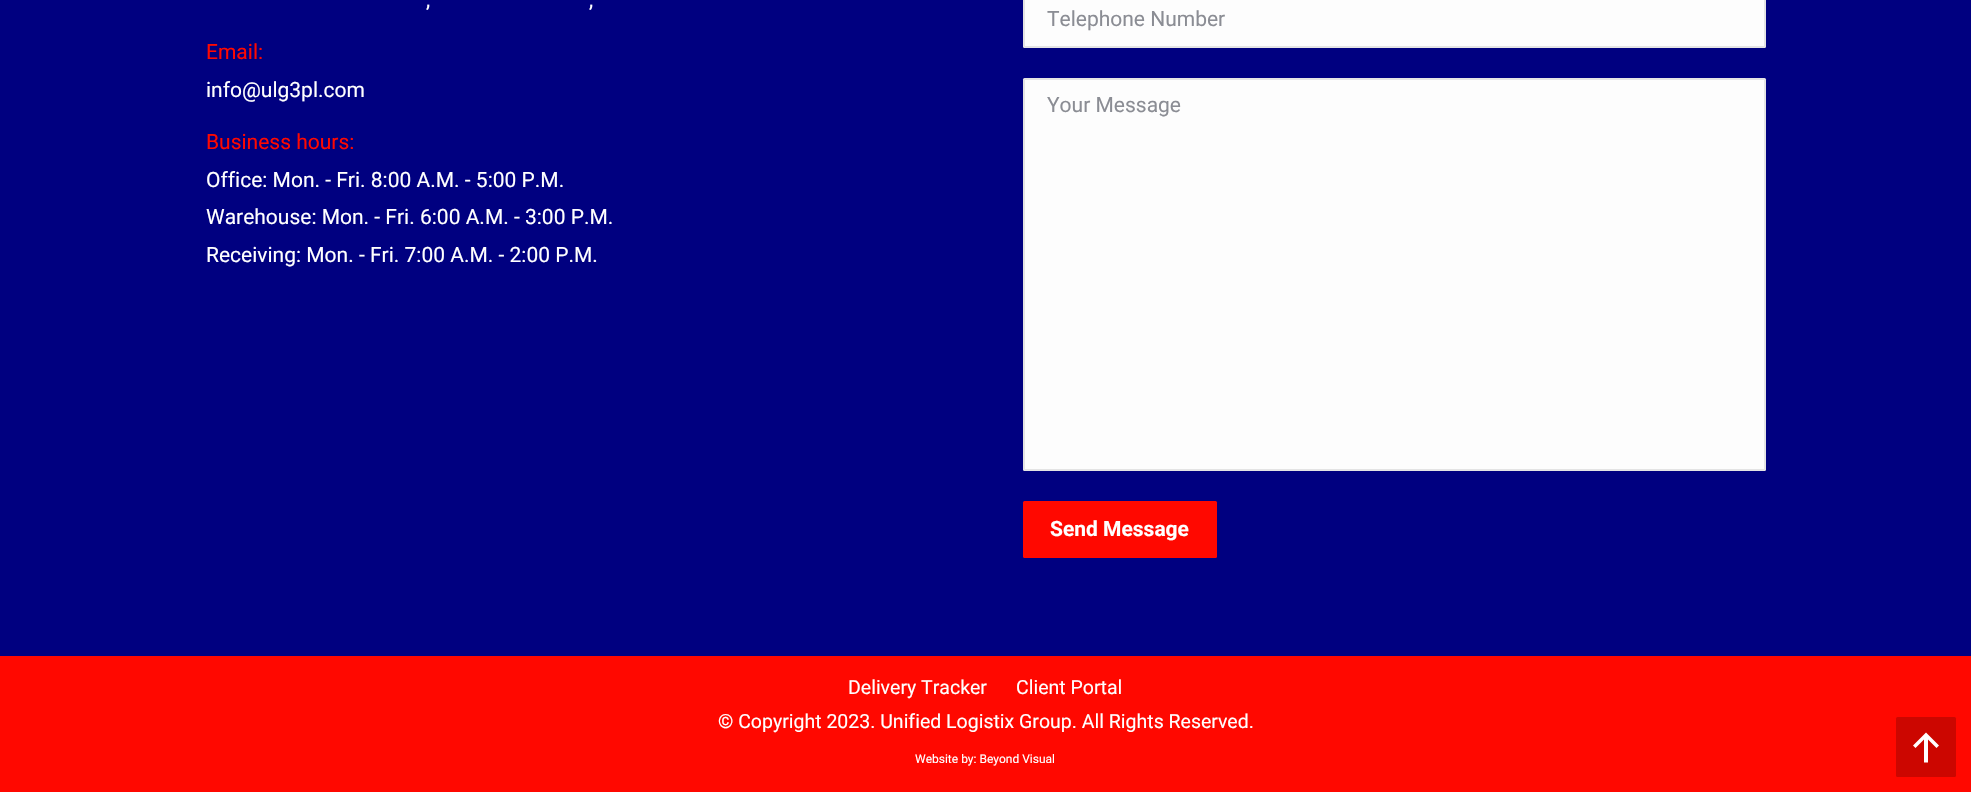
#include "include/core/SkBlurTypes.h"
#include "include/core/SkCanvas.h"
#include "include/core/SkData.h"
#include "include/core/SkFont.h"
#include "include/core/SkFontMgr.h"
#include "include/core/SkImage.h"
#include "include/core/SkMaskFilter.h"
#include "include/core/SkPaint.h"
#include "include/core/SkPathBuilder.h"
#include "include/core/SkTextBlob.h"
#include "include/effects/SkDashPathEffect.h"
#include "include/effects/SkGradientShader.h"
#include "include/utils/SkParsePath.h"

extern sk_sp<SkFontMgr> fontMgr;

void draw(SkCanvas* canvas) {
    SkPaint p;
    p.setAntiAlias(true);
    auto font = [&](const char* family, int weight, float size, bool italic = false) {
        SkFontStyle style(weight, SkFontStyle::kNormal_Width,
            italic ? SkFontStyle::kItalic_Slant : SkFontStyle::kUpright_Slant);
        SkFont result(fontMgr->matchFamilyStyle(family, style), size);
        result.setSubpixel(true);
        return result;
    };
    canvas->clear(0xFF000080);
    auto font1 = font("Roboto", 400, 21);
    p.setColor(0xFFFFFFFF);
    canvas->drawString(",", 426, 7, font1, p);
    canvas->drawString(",", 589, 7, font1, p);
    p.setColor(0xFFFF0800);
    canvas->drawString("Email:", 206, 59, font1, p);
    p.setColor(0xFFFFFFFF);
    canvas->drawString("info@ulg3pl.com", 206, 97, font1, p);
    p.setColor(0xFFFF0800);
    canvas->drawString("Business hours:", 206, 149, font1, p);
    p.setColor(0xFFFFFFFF);
    {
        const struct { const char* s; float x, y; } items[] = {
            {"Office: Mon. - Fri. 8:00 A.M. - 5:00 P.M.", 206, 187},
            {"Warehouse: Mon. - Fri. 6:00 A.M. - 3:00 P.M.", 206, 224},
            {"Receiving: Mon. - Fri. 7:00 A.M. - 2:00 P.M.", 206, 262},
        };
        for (auto [s, x, y] : items) {
            canvas->drawString(s, x, y, font1, p);
        }
    }
    p.setColor(0xFFFDFDFD);
    canvas->drawRoundRect(SkRect::MakeLTRB(1023, -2, 1766, 48), 1.5f, 1.5f, p);
    p.setStyle(SkPaint::kStroke_Style);
    p.setStrokeWidth(2);
    p.setColor(0x1F333333);
    canvas->drawRect(SkRect::MakeLTRB(1024, -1, 1765, 47), p);
    p.setStyle(SkPaint::kFill_Style);
    p.setColor(0xFF8B8D94);
    canvas->drawString("Telephone Number", 1047, 26, font1, p);
    p.setColor(0xFFFDFDFD);
    canvas->drawRoundRect(SkRect::MakeLTRB(1023, 78, 1766, 471), 1.5f, 1.5f, p);
    p.setStyle(SkPaint::kStroke_Style);
    p.setColor(0x1F333333);
    canvas->drawRect(SkRect::MakeLTRB(1024, 79, 1765, 470), p);
    p.setStyle(SkPaint::kFill_Style);
    p.setColor(0xFF8B8D94);
    canvas->drawString("Your Message", 1047, 112, font1, p);
    p.setColor(0xFFFF0800);
    canvas->drawRoundRect(SkRect::MakeLTRB(1023, 501, 1217, 558), 1.5f, 1.5f, p);
    auto font2 = font("Roboto", 700, 21);
    p.setColor(0xFFFFFFFF);
    canvas->drawString("Send Message", 1050, 536, font2, p);
    p.setColor(0xFFFF0800);
    canvas->drawRect(SkRect::MakeLTRB(0, 656, 1971, 792), p);
    auto font3 = font("Roboto", 400, 19.5f);
    p.setColor(0xFFFFFFFF);
    {
        const struct { const char* s; float x, y; } items[] = {
            {"Delivery Tracker", 848, 694},
            {"Client Portal", 1016, 694},
            {"© Copyright 2023. Unified Logistix Group. All Rights Reserved.", 718, 728},
        };
        for (auto [s, x, y] : items) {
            canvas->drawString(s, x, y, font3, p);
        }
    }
    auto font4 = font("Roboto", 400, 12);
    canvas->drawString("Website by: Beyond Visual", 915, 763, font4, p);
    p.setColor(0xFFCC0600);
    canvas->drawRoundRect(SkRect::MakeLTRB(1896, 717, 1956, 777), 1.5f, 1.5f, p);
    p.setColor(0xFFFFFFFF);
    canvas->drawPath(SkPathBuilder().moveTo(1913, 745.5f).lineTo(1915.5f, 748).lineTo(1924, 739.5f).lineTo(1924, 762.5f).lineTo(1928, 762.5f).lineTo(1928, 739.5f).lineTo(1936.5f, 748).lineTo(1939, 745.5f).lineTo(1926, 732.5f).close().detach(), p);
}
